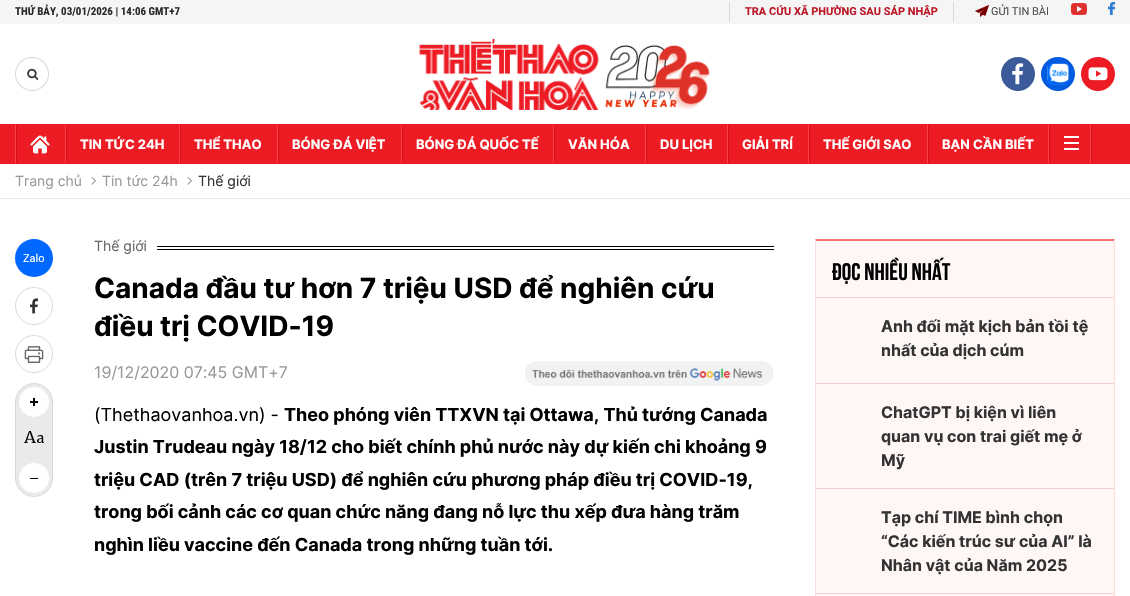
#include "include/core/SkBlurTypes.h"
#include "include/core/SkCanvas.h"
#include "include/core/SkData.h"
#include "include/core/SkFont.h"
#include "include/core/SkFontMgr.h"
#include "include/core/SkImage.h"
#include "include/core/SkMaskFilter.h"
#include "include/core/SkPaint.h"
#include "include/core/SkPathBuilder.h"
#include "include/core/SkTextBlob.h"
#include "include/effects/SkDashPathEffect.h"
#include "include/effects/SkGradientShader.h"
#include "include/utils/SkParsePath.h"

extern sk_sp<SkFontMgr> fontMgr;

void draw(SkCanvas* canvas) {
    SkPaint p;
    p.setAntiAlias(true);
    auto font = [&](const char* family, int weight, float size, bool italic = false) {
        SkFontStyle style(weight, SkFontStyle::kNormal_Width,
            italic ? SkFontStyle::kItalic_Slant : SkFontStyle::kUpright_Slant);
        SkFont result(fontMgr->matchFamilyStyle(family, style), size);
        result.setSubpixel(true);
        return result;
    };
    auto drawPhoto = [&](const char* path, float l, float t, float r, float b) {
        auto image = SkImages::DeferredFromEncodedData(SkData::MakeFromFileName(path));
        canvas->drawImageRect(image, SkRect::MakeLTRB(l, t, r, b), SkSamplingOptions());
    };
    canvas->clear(0xFFFFFFFF);
    p.setColor(0xFFF5F5F5);
    canvas->drawRect(SkRect::MakeLTRB(0, 0, 1130, 24), p);
    auto font1 = font("Roboto Condensed", 700, 11);
    p.setColor(0xFF2B2B2B);
    canvas->drawString("THỨ BẢY, 03/01/2026 | 14:06 GMT+7", 15, 15, font1, p);
    p.setColor(0xFFD8D8D8);
    canvas->drawRect(SkRect::MakeLTRB(953, 2, 954, 22), p);
    canvas->drawRect(SkRect::MakeLTRB(729, 2, 730, 22), p);
    auto font2 = font("Roboto", 700, 11);
    p.setColor(0xFFBD1728);
    canvas->drawString("TRA CỨU XÃ PHƯỜNG SAU SÁP NHẬP", 745, 15, font2, p);
    drawPhoto("media/1.png", 975, 5, 989, 17);
    auto font3 = font("Roboto", 400, 11);
    p.setColor(0xFF525252);
    canvas->drawString("GỬI TIN BÀI", 991, 15, font3, p);
    drawPhoto("media/2.png", 1071, 3, 1087, 15);
    drawPhoto("media/3.png", 1108, 2, 1115, 15);
    drawPhoto("media/4.png", 15, 57, 49, 91);
    drawPhoto("media/5.png", 419, 39, 710, 110);
    p.setColor(0xFF3B5A99);
    canvas->drawCircle(1018, 74, 17, p);
    drawPhoto("media/6.png", 1012, 63, 1024, 85);
    p.setColor(0xFF005BE0);
    canvas->drawCircle(1058, 74, 17, p);
    drawPhoto("media/7.png", 1047, 63, 1069, 85);
    p.setColor(0xFFED1C24);
    canvas->drawCircle(1098, 74, 17, p);
    drawPhoto("media/8.png", 1088, 67, 1108, 81);
    {
        const struct { float l, t, r, b; SkColor color; } items[] = {
            {0, 124, 1130, 164, 0xFFED1C24},
            {15, 125, 16, 163, 0xFFFF4148},
            {16, 125, 17, 163, 0xFFD31018},
        };
        for (auto [l, t, r, b, color] : items) {
            p.setColor(color);
            canvas->drawRect(SkRect::MakeLTRB(l, t, r, b), p);
        }
    }
    drawPhoto("media/9.png", 30, 135, 50, 154);
    p.setColor(0xFFFF4148);
    canvas->drawRect(SkRect::MakeLTRB(65, 125, 66, 163), p);
    p.setColor(0xFFD31018);
    canvas->drawRect(SkRect::MakeLTRB(66, 125, 67, 163), p);
    auto font4 = font("Inter", 700, 13);
    p.setColor(0xFFFFFFFF);
    canvas->drawString("TIN TỨC 24H", 80, 149, font4, p);
    p.setColor(0xFFFF4148);
    canvas->drawRect(SkRect::MakeLTRB(179, 125, 180, 163), p);
    p.setColor(0xFFD31018);
    canvas->drawRect(SkRect::MakeLTRB(180, 125, 181, 163), p);
    p.setColor(0xFFFFFFFF);
    canvas->drawString("THỂ THAO", 194, 149, font4, p);
    p.setColor(0xFFFF4148);
    canvas->drawRect(SkRect::MakeLTRB(277, 125, 278, 163), p);
    p.setColor(0xFFD31018);
    canvas->drawRect(SkRect::MakeLTRB(278, 125, 279, 163), p);
    p.setColor(0xFFFFFFFF);
    canvas->drawString("BÓNG ĐÁ VIỆT", 292, 149, font4, p);
    p.setColor(0xFFFF4148);
    canvas->drawRect(SkRect::MakeLTRB(401, 125, 402, 163), p);
    p.setColor(0xFFD31018);
    canvas->drawRect(SkRect::MakeLTRB(402, 125, 403, 163), p);
    p.setColor(0xFFFFFFFF);
    canvas->drawString("BÓNG ĐÁ QUỐC TẾ", 416, 149, font4, p);
    p.setColor(0xFFFF4148);
    canvas->drawRect(SkRect::MakeLTRB(553, 125, 554, 163), p);
    p.setColor(0xFFD31018);
    canvas->drawRect(SkRect::MakeLTRB(554, 125, 555, 163), p);
    p.setColor(0xFFFFFFFF);
    canvas->drawString("VĂN HÓA", 568, 149, font4, p);
    p.setColor(0xFFFF4148);
    canvas->drawRect(SkRect::MakeLTRB(645, 125, 646, 163), p);
    p.setColor(0xFFD31018);
    canvas->drawRect(SkRect::MakeLTRB(646, 125, 647, 163), p);
    p.setColor(0xFFFFFFFF);
    canvas->drawString("DU LỊCH", 660, 149, font4, p);
    p.setColor(0xFFFF4148);
    canvas->drawRect(SkRect::MakeLTRB(727, 125, 728, 163), p);
    p.setColor(0xFFD31018);
    canvas->drawRect(SkRect::MakeLTRB(728, 125, 729, 163), p);
    p.setColor(0xFFFFFFFF);
    canvas->drawString("GIẢI TRÍ", 742, 149, font4, p);
    p.setColor(0xFFFF4148);
    canvas->drawRect(SkRect::MakeLTRB(808, 125, 809, 163), p);
    p.setColor(0xFFD31018);
    canvas->drawRect(SkRect::MakeLTRB(809, 125, 810, 163), p);
    p.setColor(0xFFFFFFFF);
    canvas->drawString("THẾ GIỚI SAO", 823, 149, font4, p);
    p.setColor(0xFFFF4148);
    canvas->drawRect(SkRect::MakeLTRB(927, 125, 928, 163), p);
    p.setColor(0xFFD31018);
    canvas->drawRect(SkRect::MakeLTRB(928, 125, 929, 163), p);
    p.setColor(0xFFFFFFFF);
    canvas->drawString("BẠN CẦN BIẾT", 942, 149, font4, p);
    {
        const struct { float l, t, r, b; SkColor color; } items[] = {
            {1048, 125, 1049, 163, 0xFFFF4148},
            {1049, 125, 1050, 163, 0xFFD31018},
            {1064, 136, 1079, 138, 0xFFFFFFFF},
            {1064, 142, 1079, 144, 0xFFFFFFFF},
            {1064, 148, 1079, 150, 0xFFFFFFFF},
            {1090, 125, 1091, 163, 0xFFFF4148},
            {1091, 125, 1092, 163, 0xFFD31018},
            {0, 198, 1130, 199, 0xFFEAEAEA},
        };
        for (auto [l, t, r, b, color] : items) {
            p.setColor(color);
            canvas->drawRect(SkRect::MakeLTRB(l, t, r, b), p);
        }
    }
    auto font5 = font("Inter", 400, 14);
    p.setColor(0xFF999999);
    canvas->drawString("Trang chủ", 15, 186, font5, p);
    drawPhoto("media/10.png", 91, 177, 96, 185);
    canvas->drawString("Tin tức 24h", 102, 186, font5, p);
    drawPhoto("media/10.png", 187, 177, 192, 185);
    p.setColor(0xFF333333);
    canvas->drawString("Thế giới", 198, 186, font5, p);
    p.setColor(0xFF0068FF);
    canvas->drawCircle(34, 258, 19, p);
    p.setColor(0xFFFFFFFF);
    canvas->drawString("Zalo", 23, 262, font3, p);
    p.setStyle(SkPaint::kStroke_Style);
    p.setStrokeWidth(1);
    p.setColor(0xFFD9D9D9);
    canvas->drawCircle(34, 306, 18.5f, p);
    drawPhoto("media/11.png", 30, 298, 38, 314);
    canvas->drawCircle(34, 354, 18.5f, p);
    drawPhoto("media/12.png", 24, 346, 44, 363);
    p.setStyle(SkPaint::kFill_Style);
    p.setColor(0xFFEAEAEA);
    canvas->drawRoundRect(SkRect::MakeLTRB(15.5f, 383.5f, 52.5f, 496.5f), 18.5f, 18.5f, p);
    p.setStyle(SkPaint::kStroke_Style);
    p.setColor(0xFFD9D9D9);
    canvas->drawRoundRect(SkRect::MakeLTRB(15.5f, 383.5f, 52.5f, 496.5f), 18.5f, 18.5f, p);
    p.setStyle(SkPaint::kFill_Style);
    p.setColor(0xFFFFFFFF);
    canvas->drawCircle(34, 402, 15, p);
    p.setColor(0xFF000000);
    canvas->drawRect(SkRect::MakeLTRB(30, 401, 38, 403), p);
    canvas->drawRect(SkRect::MakeLTRB(33, 398, 35, 406), p);
    drawPhoto("media/13.png", 24, 431, 44, 443);
    p.setColor(0xFFFFFFFF);
    canvas->drawCircle(34, 478, 15, p);
    p.setColor(0xFF000000);
    canvas->drawRect(SkRect::MakeLTRB(30, 478, 38, 479), p);
    p.setColor(0xFF666666);
    canvas->drawString("Thế giới", 94, 251, font5, p);
    p.setColor(0xFF000000);
    canvas->drawRect(SkRect::MakeLTRB(157, 246, 774, 247), p);
    canvas->drawRect(SkRect::MakeLTRB(157, 249, 774, 250), p);
    auto font6 = font("Inter", 700, 28);
    canvas->drawString("Canada đầu tư hơn 7 triệu USD để nghiên cứu", 94, 298, font6, p);
    canvas->drawString("điều trị COVID-19", 94, 336, font6, p);
    auto font7 = font("Inter", 400, 16);
    p.setColor(0xFF999999);
    canvas->drawString("19/12/2020 07:45 GMT+7", 94, 378, font7, p);
    drawPhoto("media/14.png", 525, 361, 773, 386);
    auto font8 = font("Inter", 400, 18);
    p.setColor(0xFF000000);
    canvas->drawString("(Thethaovanhoa.vn) -", 94, 421, font8, p);
    auto font9 = font("Inter", 700, 18);
    {
        const struct { const char* s; float x, y; } items[] = {
            {"Theo phóng viên TTXVN tại Ottawa, Thủ tướng Canada", 284, 421},
            {"Justin Trudeau ngày 18/12 cho biết chính phủ nước này dự kiến chi khoảng 9", 94, 453},
            {"triệu CAD (trên 7 triệu USD) để nghiên cứu phương pháp điều trị COVID-19,", 94, 486},
            {"trong bối cảnh các cơ quan chức năng đang nỗ lực thu xếp đưa hàng trăm", 94, 518},
            {"nghìn liều vaccine đến Canada trong những tuần tới.", 94, 551},
        };
        for (auto [s, x, y] : items) {
            canvas->drawString(s, x, y, font9, p);
        }
    }
    p.setColor(0xFFFFF6F6);
    canvas->drawRect(SkRect::MakeLTRB(816, 241, 1114, 596), p);
    p.setColor(0xFFFF7373);
    canvas->drawPath(SkPathBuilder().moveTo(815, 239).lineTo(1115, 239).lineTo(1114, 241).lineTo(816, 241).close().detach(), p);
    p.setColor(0xFFFFDBDB);
    canvas->drawPath(SkPathBuilder().moveTo(1115, 239).lineTo(1115, 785).lineTo(1114, 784).lineTo(1114, 241).close().detach(), p);
    canvas->drawPath(SkPathBuilder().moveTo(815, 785).lineTo(815, 239).lineTo(816, 241).lineTo(816, 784).close().detach(), p);
    auto font10 = font("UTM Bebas", 400, 24);
    p.setColor(0xFF000000);
    canvas->drawString("ĐỌC NHIỀU NHẤT", 832, 280, font10, p);
    p.setColor(0xFFF2CFCF);
    canvas->drawRect(SkRect::MakeLTRB(816, 297, 1114, 298), p);
    auto font11 = font("Inter", 700, 16);
    p.setColor(0xFF333333);
    canvas->drawString("Anh đối mặt kịch bản tồi tệ", 881, 332, font11, p);
    canvas->drawString("nhất của dịch cúm", 881, 356, font11, p);
    p.setColor(0xFFF2CFCF);
    canvas->drawRect(SkRect::MakeLTRB(816, 383, 1114, 384), p);
    p.setColor(0xFF333333);
    {
        const struct { const char* s; float x, y; } items[] = {
            {"ChatGPT bị kiện vì liên", 881, 418},
            {"quan vụ con trai giết mẹ ở", 881, 442},
            {"Mỹ", 881, 466},
        };
        for (auto [s, x, y] : items) {
            canvas->drawString(s, x, y, font11, p);
        }
    }
    p.setColor(0xFFF2CFCF);
    canvas->drawRect(SkRect::MakeLTRB(816, 488, 1114, 489), p);
    p.setColor(0xFF333333);
    {
        const struct { const char* s; float x, y; } items[] = {
            {"Tạp chí TIME bình chọn", 881, 523},
            {"“Các kiến trúc sư của AI” là", 881, 547},
            {"Nhân vật của Năm 2025", 881, 571},
        };
        for (auto [s, x, y] : items) {
            canvas->drawString(s, x, y, font11, p);
        }
    }
    p.setColor(0xFFF2CFCF);
    canvas->drawRect(SkRect::MakeLTRB(816, 593, 1114, 594), p);
}
